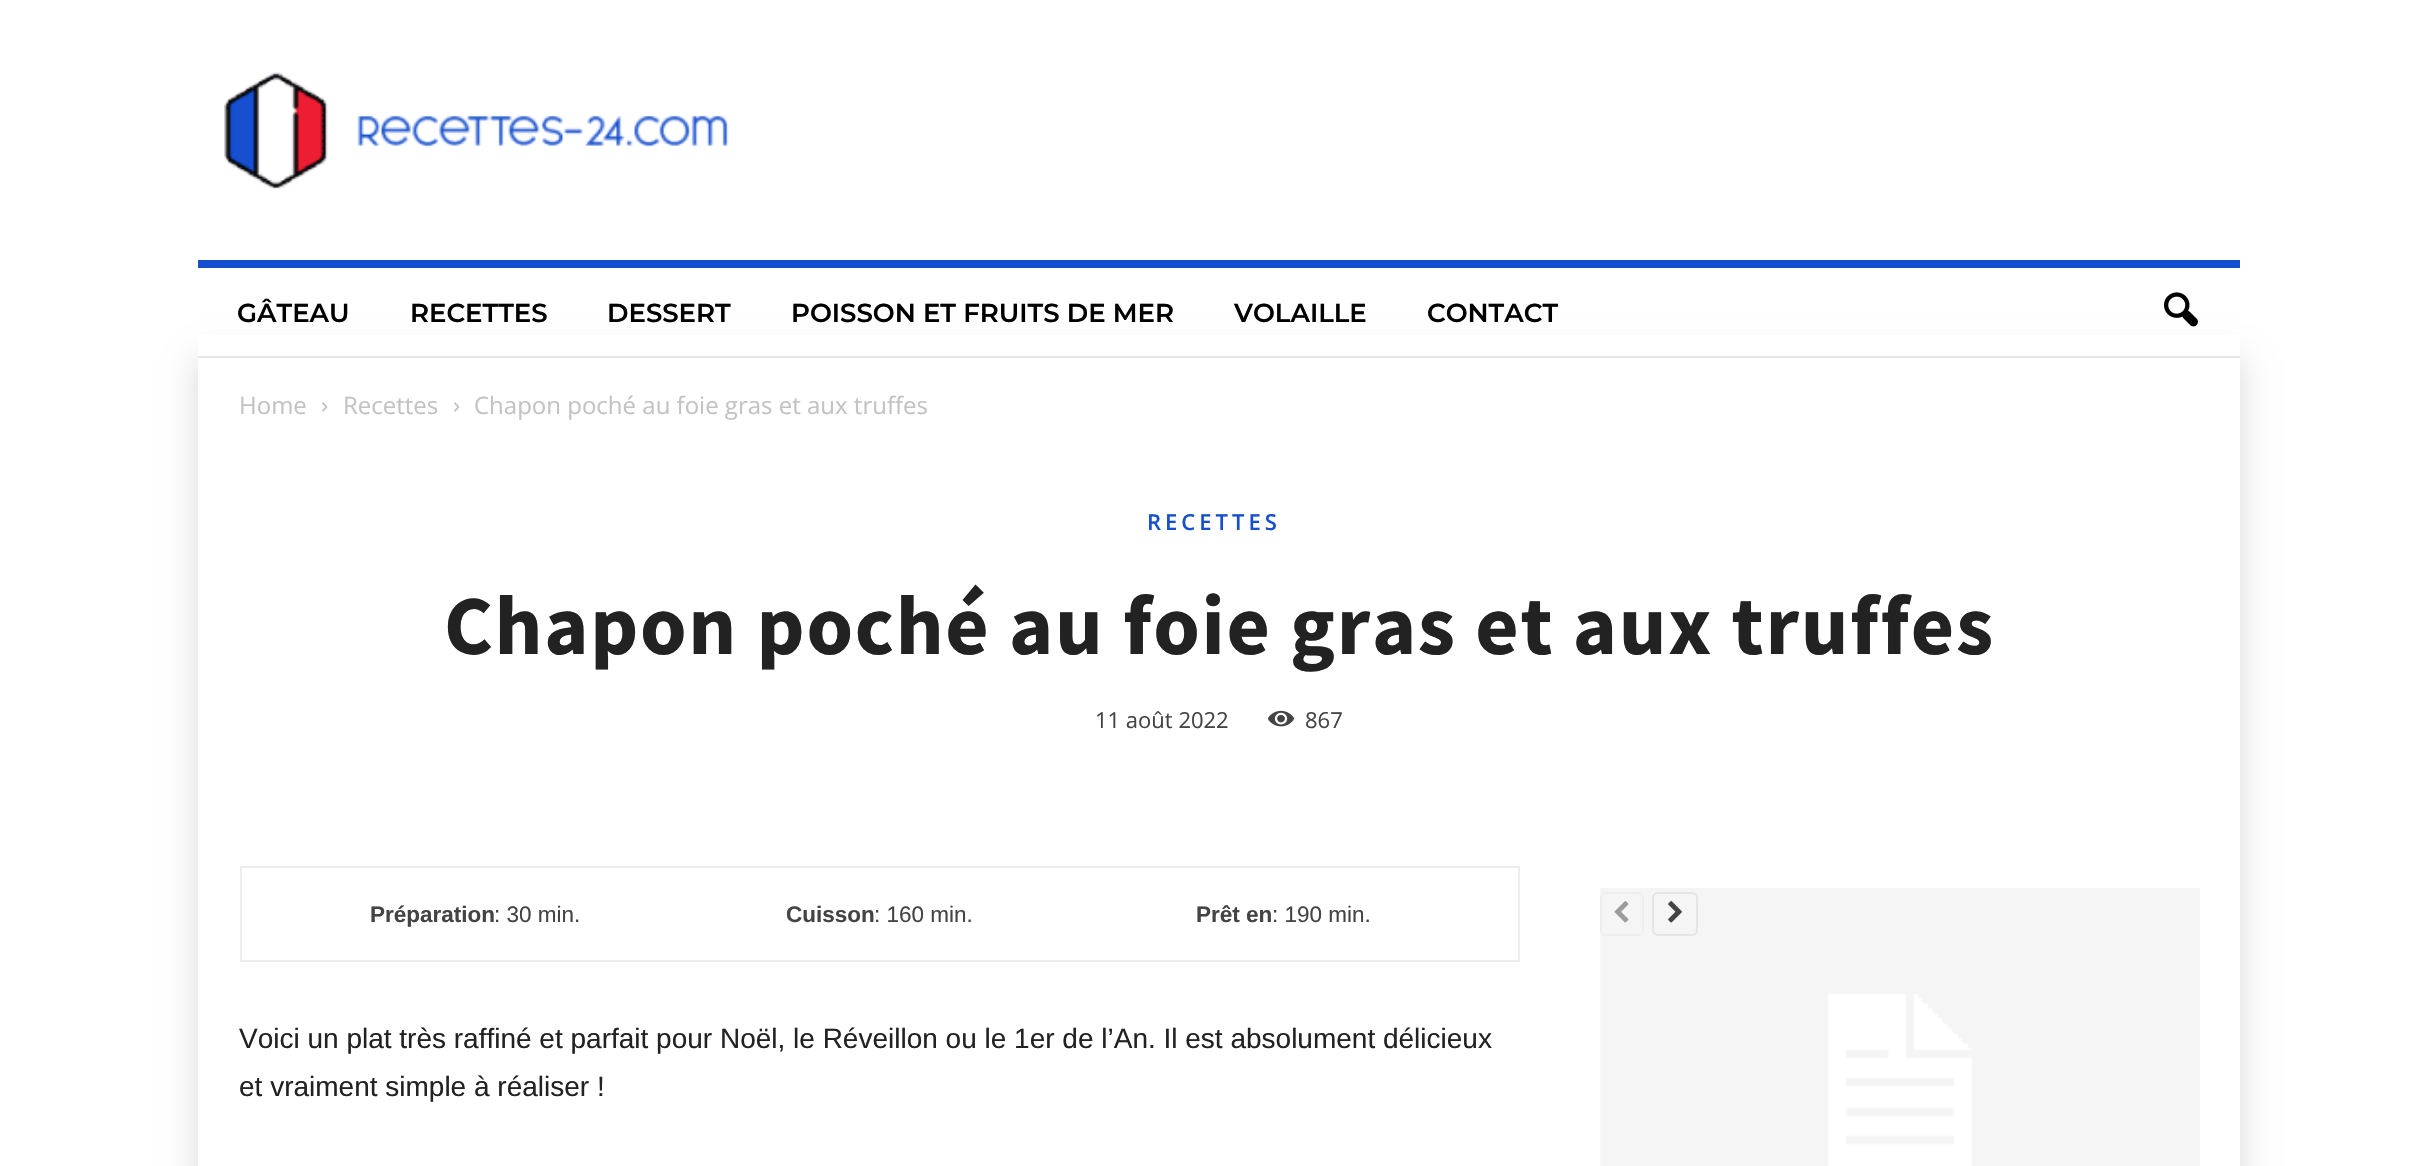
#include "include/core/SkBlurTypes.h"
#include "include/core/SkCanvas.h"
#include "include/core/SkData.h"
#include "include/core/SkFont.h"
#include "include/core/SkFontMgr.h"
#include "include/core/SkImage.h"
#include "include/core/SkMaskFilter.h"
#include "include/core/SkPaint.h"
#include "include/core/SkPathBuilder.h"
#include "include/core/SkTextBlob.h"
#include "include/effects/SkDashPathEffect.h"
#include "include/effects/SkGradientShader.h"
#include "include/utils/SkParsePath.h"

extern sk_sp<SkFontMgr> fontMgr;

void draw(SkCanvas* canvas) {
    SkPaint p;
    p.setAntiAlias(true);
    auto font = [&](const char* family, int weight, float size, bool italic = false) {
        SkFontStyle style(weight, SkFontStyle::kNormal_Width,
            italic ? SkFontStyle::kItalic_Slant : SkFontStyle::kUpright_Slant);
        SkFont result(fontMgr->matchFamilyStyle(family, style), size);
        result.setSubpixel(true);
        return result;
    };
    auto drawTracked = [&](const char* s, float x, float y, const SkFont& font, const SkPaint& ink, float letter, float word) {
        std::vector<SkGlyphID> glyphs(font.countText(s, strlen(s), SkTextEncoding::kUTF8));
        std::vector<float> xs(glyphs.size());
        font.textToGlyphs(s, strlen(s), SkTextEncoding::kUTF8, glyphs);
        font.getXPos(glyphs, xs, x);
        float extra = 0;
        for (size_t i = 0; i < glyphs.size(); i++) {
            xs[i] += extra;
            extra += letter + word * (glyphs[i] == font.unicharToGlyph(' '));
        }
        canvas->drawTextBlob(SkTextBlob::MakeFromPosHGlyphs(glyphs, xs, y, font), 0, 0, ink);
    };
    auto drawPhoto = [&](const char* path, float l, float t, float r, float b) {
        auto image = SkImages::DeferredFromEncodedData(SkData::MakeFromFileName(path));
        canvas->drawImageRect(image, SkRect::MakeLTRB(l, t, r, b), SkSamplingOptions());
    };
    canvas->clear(0xFFFFFFFF);
    drawPhoto("media/1.png", 224, 72, 729, 190);
    canvas->save();
    canvas->clipPath(SkPathBuilder(SkPathFillType::kEvenOdd).moveTo(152, 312).lineTo(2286, 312).lineTo(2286, 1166).lineTo(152, 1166).close().moveTo(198, 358).lineTo(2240, 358).lineTo(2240, 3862).lineTo(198, 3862).close().detach(), true);
    p.setColor(0x26000000);
    p.setMaskFilter(SkMaskFilter::MakeBlur(kNormal_SkBlurStyle, 15));
    canvas->drawRect(SkRect::MakeLTRB(198, 358, 2240, 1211), p);
    p.setMaskFilter(nullptr);
    canvas->restore();
    {
        const struct { float l, t, r, b; SkColor color; } items[] = {
            {198, 335, 2240, 356, 0xFFFFFFFF},
            {198, 356, 2240, 358, 0xFFE6E6E6},
            {198, 260, 2240, 268, 0xFF164FCE},
        };
        for (auto [l, t, r, b, color] : items) {
            p.setColor(color);
            canvas->drawRect(SkRect::MakeLTRB(l, t, r, b), p);
        }
    }
    auto font1 = font("Montserrat", 600, 26);
    p.setColor(0xFF000000);
    {
        const struct { const char* s; float x, y; } items[] = {
            {"GÂTEAU", 237, 322},
            {"RECETTES", 410, 322},
            {"DESSERT", 607, 322},
            {"POISSON ET FRUITS DE MER", 791, 322},
            {"VOLAILLE", 1234, 322},
            {"CONTACT", 1427, 322},
        };
        for (auto [s, x, y] : items) {
            canvas->drawString(s, x, y, font1, p);
        }
    }
    drawPhoto("media/2.png", 2164, 292, 2198, 327);
    auto font2 = font("Open Sans", 400, 24);
    p.setColor(0xFFC3C3C3);
    canvas->drawString("Home", 239, 414, font2, p);
    drawPhoto("media/3.png", 322, 402, 328, 412);
    canvas->drawString("Recettes", 343, 414, font2, p);
    drawPhoto("media/3.png", 454, 402, 460, 412);
    canvas->drawString("Chapon poché au foie gras et aux truffes", 474, 414, font2, p);
    auto font3 = font("Open Sans", 600, 22);
    p.setColor(0xFF164FCE);
    drawTracked("RECETTES", 1147, 530, font3, p, 4, 0);
    auto font4 = font("Source Sans Pro", 700, 84);
    p.setColor(0xFF222222);
    drawTracked("Chapon poché au foie gras et aux truffes", 444, 654, font4, p, 1.7f, 0);
    auto font5 = font("Open Sans", 400, 22);
    p.setColor(0xFF444444);
    canvas->drawString("11 août 2022", 1095, 728, font5, p);
    drawPhoto("media/4.png", 1268, 710, 1294, 727);
    canvas->drawString("867", 1305, 728, font5, p);
    p.setStyle(SkPaint::kStroke_Style);
    p.setStrokeWidth(2);
    p.setColor(0xFFEDEDED);
    canvas->drawRect(SkRect::MakeLTRB(241, 867, 1519, 961), p);
    auto font6 = font("Liberation Sans", 700, 22.5f);
    p.setStyle(SkPaint::kFill_Style);
    p.setColor(0xFF444444);
    canvas->drawString("Préparation", 370, 922, font6, p);
    auto font7 = font("Liberation Sans", 400, 22.5f);
    canvas->drawString(": 30 min.", 494, 922, font7, p);
    canvas->drawString("Cuisson", 786, 922, font6, p);
    canvas->drawString(": 160 min.", 874, 922, font7, p);
    canvas->drawString("Prêt en", 1196, 922, font6, p);
    canvas->drawString(": 190 min.", 1272, 922, font7, p);
    auto font8 = font("Liberation Sans", 400, 28);
    p.setColor(0xFF222222);
    canvas->drawString("Voici un plat très raffiné et parfait pour Noël, le Réveillon ou le 1er de l’An. Il est absolument délicieux", 239, 1048, font8, p);
    canvas->drawString("et vraiment simple à réaliser !", 239, 1096, font8, p);
    drawPhoto("media/5.png", 1600, 888, 2200, 1166);
    p.setStyle(SkPaint::kStroke_Style);
    p.setColor(0xFFEEEEEE);
    canvas->drawRoundRect(SkRect::MakeLTRB(1601, 893, 1643, 935), 5, 5, p);
    drawPhoto("media/6.png", 1614, 901, 1629, 923);
    p.setColor(0xFFE6E6E6);
    canvas->drawRoundRect(SkRect::MakeLTRB(1653, 893, 1697, 935), 5, 5, p);
    drawPhoto("media/7.png", 1668, 901, 1682, 923);
}
